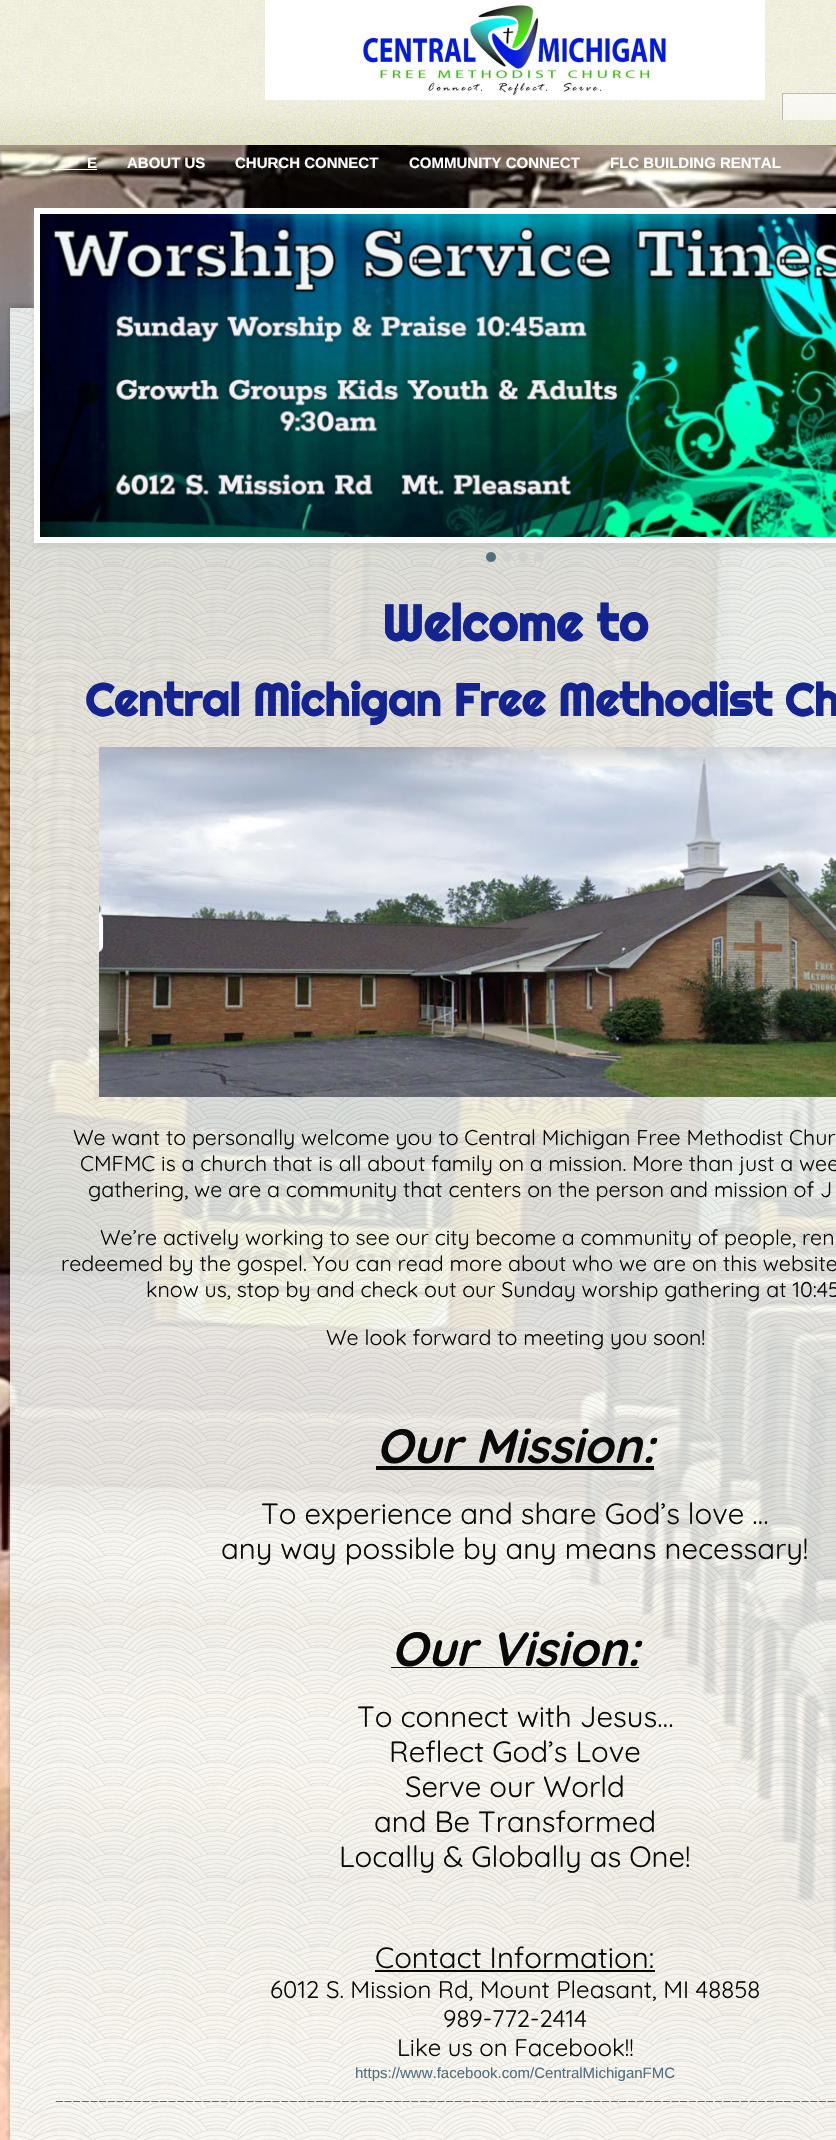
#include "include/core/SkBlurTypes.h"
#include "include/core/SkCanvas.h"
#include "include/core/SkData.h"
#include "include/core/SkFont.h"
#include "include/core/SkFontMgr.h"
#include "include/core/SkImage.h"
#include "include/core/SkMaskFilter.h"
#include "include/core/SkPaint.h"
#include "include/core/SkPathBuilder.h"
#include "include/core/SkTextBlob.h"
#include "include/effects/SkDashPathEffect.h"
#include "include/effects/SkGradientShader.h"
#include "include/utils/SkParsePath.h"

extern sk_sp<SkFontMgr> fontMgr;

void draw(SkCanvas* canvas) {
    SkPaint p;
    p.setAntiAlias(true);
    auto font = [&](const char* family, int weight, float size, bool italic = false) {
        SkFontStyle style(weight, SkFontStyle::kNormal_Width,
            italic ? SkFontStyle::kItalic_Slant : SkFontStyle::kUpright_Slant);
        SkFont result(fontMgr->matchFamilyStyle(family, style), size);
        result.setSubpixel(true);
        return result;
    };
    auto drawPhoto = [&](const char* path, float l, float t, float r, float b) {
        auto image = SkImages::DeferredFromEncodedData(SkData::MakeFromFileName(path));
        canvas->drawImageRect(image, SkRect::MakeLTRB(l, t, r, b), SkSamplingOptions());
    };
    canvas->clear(0xFFFFFFFF);
    drawPhoto("media/1.png", 0, 145, 836, 2140);
    drawPhoto("media/2.png", 0, 0, 836, 145);
    drawPhoto("media/3.png", 265, 0, 765, 100);
    p.setColor(0x99FFFFFF);
    canvas->drawRect(SkRect::MakeLTRB(783, 94, 836, 120), p);
    canvas->save();
    canvas->clipRect(SkRect::MakeLTRB(782, 93, 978, 120));
    p.setColor(0xFFBBBBBB);
    canvas->drawPath(SkPathBuilder(SkPathFillType::kEvenOdd).moveTo(683, -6).lineTo(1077, -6).lineTo(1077, 219).lineTo(683, 219).close().moveTo(783, 94).lineTo(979, 94).lineTo(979, 121).lineTo(783, 121).close().detach(), p);
    canvas->restore();
    auto font1 = font("Liberation Sans", 700, 15);
    p.setColor(0xFFFFFFFF);
    canvas->drawString("E", 87, 168, font1, p);
    canvas->drawRect(SkRect::MakeLTRB(52, 169, 97, 170), p);
    {
        const struct { const char* s; float x, y; } items[] = {
            {"ABOUT US", 127, 168},
            {"CHURCH CONNECT", 235, 168},
            {"COMMUNITY CONNECT", 409, 168},
            {"FLC BUILDING RENTAL", 610, 168},
        };
        for (auto [s, x, y] : items) {
            canvas->drawString(s, x, y, font1, p);
        }
    }
    canvas->save();
    canvas->clipPath(SkPathBuilder(SkPathFillType::kEvenOdd).moveTo(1, 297).lineTo(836, 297).lineTo(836, 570).lineTo(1, 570).close().moveTo(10, 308).lineTo(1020, 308).lineTo(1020, 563).lineTo(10, 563).close().detach(), true);
    p.setColor(0x33000000);
    p.setMaskFilter(SkMaskFilter::MakeBlur(kNormal_SkBlurStyle, 2.5f));
    canvas->drawRect(SkRect::MakeLTRB(10, 306, 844, 561), p);
    p.setMaskFilter(nullptr);
    canvas->restore();
    p.setColor(0xDBF7FCF8);
    canvas->drawRect(SkRect::MakeLTRB(10, 308, 836, 563), p);
    drawPhoto("media/4.png", 10, 308, 836, 563);
    drawPhoto("media/6.png", 486, 552, 496, 562);
    drawPhoto("media/7.png", 502, 552, 512, 562);
    drawPhoto("media/8.png", 518, 552, 528, 562);
    drawPhoto("media/9.png", 534, 552, 544, 562);
    p.setColor(0x80BEBEBE);
    p.setMaskFilter(SkMaskFilter::MakeBlur(kNormal_SkBlurStyle, 2.5f));
    canvas->drawRect(SkRect::MakeLTRB(34, 213, 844, 548), p);
    p.setMaskFilter(nullptr);
    p.setStyle(SkPaint::kStroke_Style);
    p.setStrokeWidth(6);
    p.setColor(0xFFFFFFFF);
    canvas->drawRect(SkRect::MakeLTRB(37, 211, 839, 540), p);
    drawPhoto("media/5.png", 40, 214, 836, 537);
    canvas->save();
    canvas->clipRect(SkRect::MakeLTRB(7, 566, 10, 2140));
    p.setStyle(SkPaint::kFill_Style);
    p.setColor(0x33000000);
    p.setMaskFilter(SkMaskFilter::MakeBlur(kNormal_SkBlurStyle, 2.5f));
    canvas->drawRect(SkRect::MakeLTRB(10, 568, 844, 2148), p);
    p.setMaskFilter(nullptr);
    canvas->restore();
    p.setColor(0xDBF7FCF8);
    canvas->drawRect(SkRect::MakeLTRB(10, 563, 836, 2140), p);
    drawPhoto("media/10.png", 10, 563, 836, 2140);
    auto font2 = font("Righteous", 700, 50.5f);
    p.setColor(0xFF132491);
    canvas->drawString("Welcome to", 382, 641, font2, p);
    auto font3 = font("Righteous", 700, 45.3f);
    canvas->drawString("Central Michigan Free Methodist Ch", 85, 716, font3, p);
    drawPhoto("media/11.png", 99, 747, 836, 1097);
    auto font4 = font("Quicksand", 400, 21.35f);
    p.setColor(0xFF0A0909);
    {
        const struct { const char* s; float x, y; } items[] = {
            {"We want to personally welcome you to Central Michigan Free Methodist Chur", 73, 1145},
            {"CMFMC is a church that is all about family on a mission. More than just a wee", 80, 1171},
            {"gathering, we are a community that centers on the person and mission of J", 88, 1197},
            {"We’re actively working to see our city become a community of people, ren", 100, 1245},
            {"redeemed by the gospel. You can read more about who we are on this website", 61, 1271},
            {"know us, stop by and check out our Sunday worship gathering at 10:45", 146, 1297},
            {"We look forward to meeting you soon!", 326, 1345},
        };
        for (auto [s, x, y] : items) {
            canvas->drawString(s, x, y, font4, p);
        }
    }
    auto font5 = font("Quicksand", 700, 48, true);
    canvas->drawString("Our Mission:", 376, 1463, font5, p);
    canvas->drawRect(SkRect::MakeLTRB(376, 1466, 654, 1470), p);
    auto font6 = font("Quicksand", 400, 29.3f);
    canvas->drawString("To experience and share God’s love …", 261, 1524, font6, p);
    canvas->drawString("any way possible by any means necessary!", 221, 1559, font6, p);
    canvas->drawString("Our Vision:", 391, 1666, font5, p);
    canvas->drawRect(SkRect::MakeLTRB(391, 1667, 639, 1668), p);
    {
        const struct { const char* s; float x, y; } items[] = {
            {"To connect with Jesus…", 357, 1727},
            {"Reflect God’s Love", 389, 1762},
            {"Serve our World", 405, 1797},
            {"and Be Transformed", 374, 1832},
            {"Locally & Globally as One!", 339, 1867},
            {"Contact Information:", 375, 1968},
        };
        for (auto [s, x, y] : items) {
            canvas->drawString(s, x, y, font6, p);
        }
    }
    canvas->drawRect(SkRect::MakeLTRB(375, 1970, 655, 1972), p);
    auto font7 = font("Quicksand", 400, 24);
    {
        const struct { const char* s; float x, y; } items[] = {
            {"6012 S. Mission Rd, Mount Pleasant, MI 48858", 270, 1998},
            {"989-772-2414", 443, 2027},
            {"Like us on Facebook!!", 397, 2056},
        };
        for (auto [s, x, y] : items) {
            canvas->drawString(s, x, y, font7, p);
        }
    }
    auto font8 = font("Liberation Sans", 400, 15);
    p.setColor(0xFF516E80);
    canvas->drawString("https://www.facebook.com/CentralMichiganFMC", 355, 2078, font8, p);
    auto font9 = font("Quicksand", 400, 13);
    p.setColor(0xFF0A0909);
    canvas->drawString("__________________________________________________________________________________________", 55, 2100, font9, p);
}
